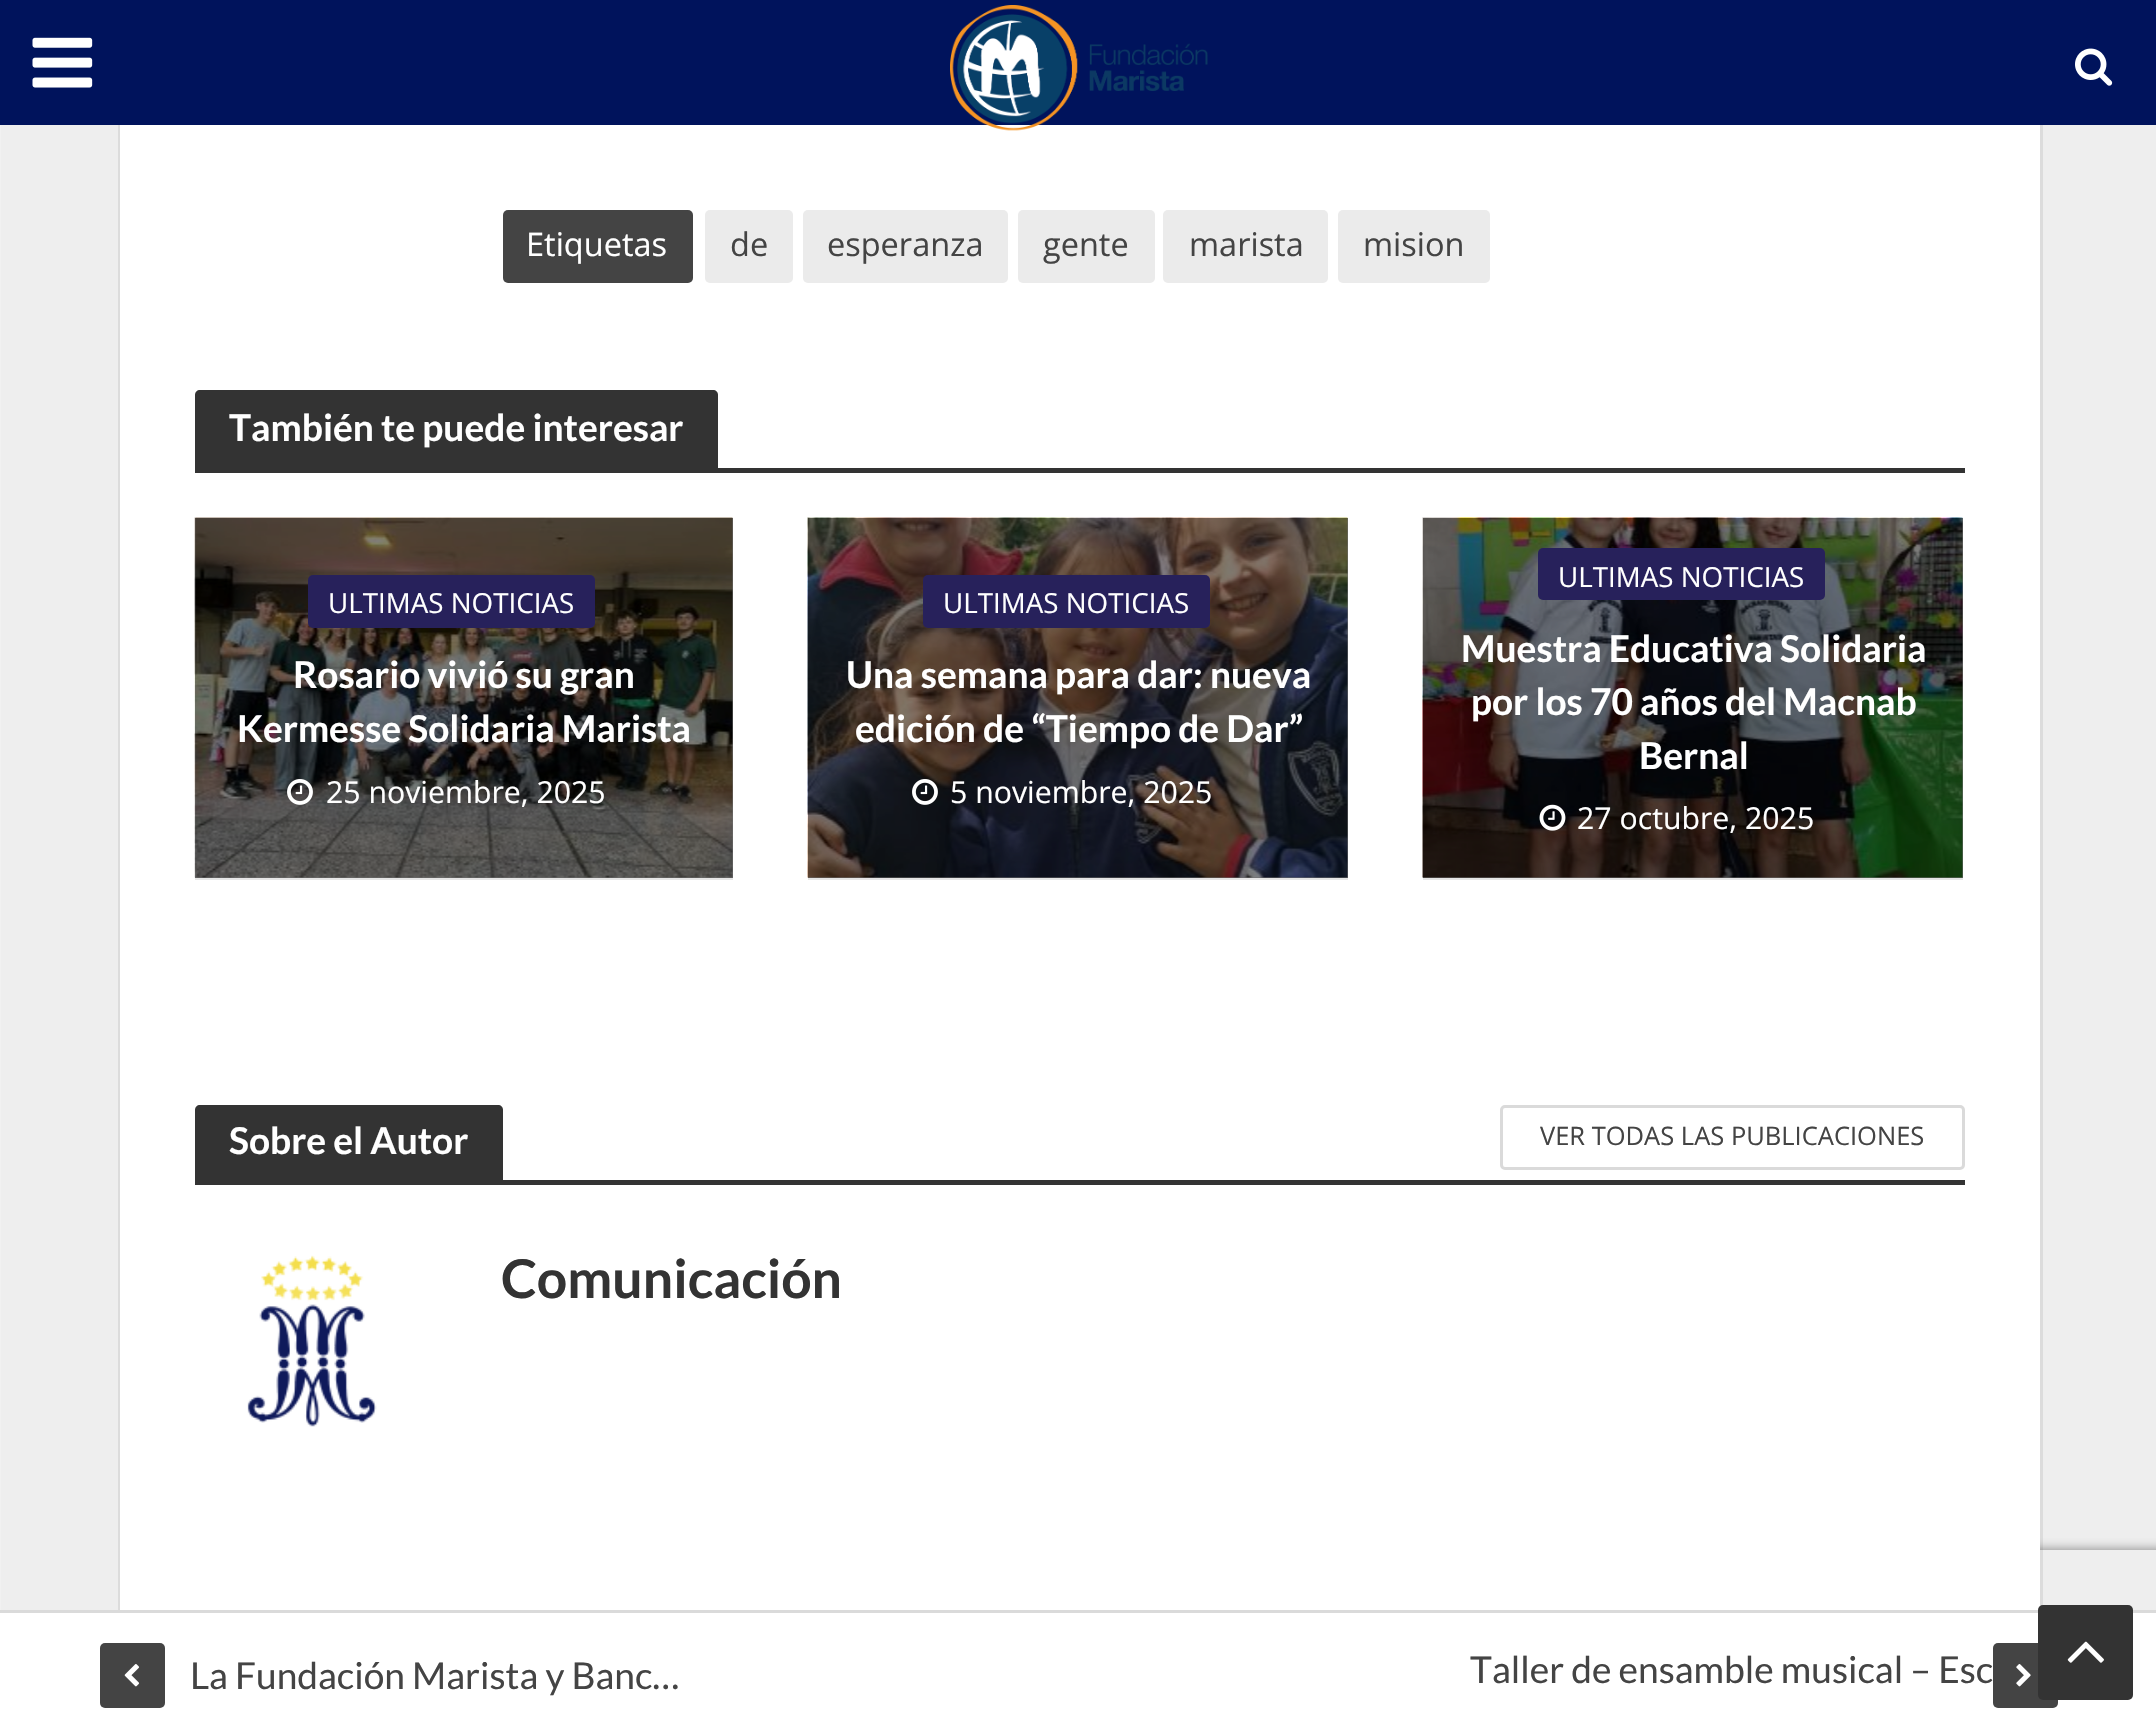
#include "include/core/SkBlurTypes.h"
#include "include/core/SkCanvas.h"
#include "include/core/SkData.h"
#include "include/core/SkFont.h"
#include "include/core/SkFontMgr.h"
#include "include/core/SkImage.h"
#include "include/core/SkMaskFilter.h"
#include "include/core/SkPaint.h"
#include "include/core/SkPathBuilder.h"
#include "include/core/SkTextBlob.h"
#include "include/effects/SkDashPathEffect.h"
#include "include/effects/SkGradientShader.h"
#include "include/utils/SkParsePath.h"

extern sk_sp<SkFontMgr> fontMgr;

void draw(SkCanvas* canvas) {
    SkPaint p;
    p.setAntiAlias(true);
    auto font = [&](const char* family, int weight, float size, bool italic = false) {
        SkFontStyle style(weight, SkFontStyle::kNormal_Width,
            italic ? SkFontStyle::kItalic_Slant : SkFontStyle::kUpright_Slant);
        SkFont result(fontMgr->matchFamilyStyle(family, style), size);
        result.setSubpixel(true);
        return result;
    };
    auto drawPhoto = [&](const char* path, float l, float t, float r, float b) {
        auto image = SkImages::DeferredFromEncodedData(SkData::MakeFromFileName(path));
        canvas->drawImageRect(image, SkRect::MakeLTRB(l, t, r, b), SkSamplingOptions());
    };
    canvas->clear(0xFFEEEEEE);
    canvas->save();
    canvas->clipRect(SkRect::MakeLTRB(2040, 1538, 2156, 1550));
    p.setColor(0xFF808080);
    p.setMaskFilter(SkMaskFilter::MakeBlur(kNormal_SkBlurStyle, 6));
    canvas->drawRoundRect(SkRect::MakeLTRB(1983, 1550, 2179, 1700), 5, 5, p);
    p.setMaskFilter(nullptr);
    canvas->restore();
    p.setStyle(SkPaint::kStroke_Style);
    p.setStrokeWidth(3);
    p.setColor(0x1A444444);
    canvas->drawRect(SkRect::MakeLTRB(119.5f, -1.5f, 2041.5f, 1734.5f), p);
    p.setStyle(SkPaint::kFill_Style);
    p.setColor(0xFF00135C);
    canvas->drawRect(SkRect::MakeLTRB(0, 0, 2156, 125), p);
    drawPhoto("media/1.png", 32, 37, 93, 88);
    p.setColor(0xFFFFFFFF);
    canvas->drawRect(SkRect::MakeLTRB(120, 125, 2040, 1610), p);
    drawPhoto("media/2.png", 950, 5, 1208, 131);
    drawPhoto("media/3.png", 2075, 48, 2113, 86);
    p.setColor(0xFFF1F1F1);
    canvas->drawRect(SkRect::MakeLTRB(0, 125, 1, 1610), p);
    p.setColor(0xFF444444);
    canvas->drawRoundRect(SkRect::MakeLTRB(503, 210, 693, 283), 5, 5, p);
    auto font1 = font("Open Sans", 400, 32.5f);
    p.setColor(0xFFFFFFFF);
    canvas->drawString("Etiquetas", 526, 256, font1, p);
    p.setColor(0xFFEBEBEB);
    canvas->drawRoundRect(SkRect::MakeLTRB(705, 210, 793, 283), 5, 5, p);
    p.setColor(0xFF444444);
    canvas->drawString("de", 730, 256, font1, p);
    p.setColor(0xFFEBEBEB);
    canvas->drawRoundRect(SkRect::MakeLTRB(803, 210, 1008, 283), 5, 5, p);
    p.setColor(0xFF444444);
    canvas->drawString("esperanza", 827, 256, font1, p);
    p.setColor(0xFFEBEBEB);
    canvas->drawRoundRect(SkRect::MakeLTRB(1018, 210, 1155, 283), 5, 5, p);
    p.setColor(0xFF444444);
    canvas->drawString("gente", 1043, 256, font1, p);
    p.setColor(0xFFEBEBEB);
    canvas->drawRoundRect(SkRect::MakeLTRB(1163, 210, 1328, 283), 5, 5, p);
    p.setColor(0xFF444444);
    canvas->drawString("marista", 1189, 256, font1, p);
    p.setColor(0xFFEBEBEB);
    canvas->drawRoundRect(SkRect::MakeLTRB(1338, 210, 1490, 283), 5, 5, p);
    p.setColor(0xFF444444);
    canvas->drawString("mision", 1363, 256, font1, p);
    p.setColor(0xFF333333);
    canvas->drawPath(SkPathBuilder().moveTo(200, 390).lineTo(713, 390).cubicTo(716, 390, 718, 392, 718, 395).lineTo(718, 468).lineTo(195, 468).lineTo(195, 395).cubicTo(195, 392, 197, 390, 200, 390).close().detach(), p);
    auto font2 = font("Lato", 700, 37.1f);
    p.setColor(0xFFFFFFFF);
    canvas->drawString("También te puede interesar", 229, 441, font2, p);
    {
        const struct { float l, t, r, b; SkColor color; } items[] = {
            {195, 468, 1965, 473, 0xFF333333},
            {195, 878, 733, 880, 0xFFE6E6E6},
            {195, 518, 733, 878, 0xFF6E6E6E},
        };
        for (auto [l, t, r, b, color] : items) {
            p.setColor(color);
            canvas->drawRect(SkRect::MakeLTRB(l, t, r, b), p);
        }
    }
    drawPhoto("media/4.png", 194, 517, 733, 878);
    p.setColor(0xFF27215B);
    canvas->drawRoundRect(SkRect::MakeLTRB(308, 575, 595, 628), 5, 5, p);
    auto font3 = font("Open Sans", 400, 27.75f);
    p.setColor(0xFFFFFFFF);
    canvas->drawString("ULTIMAS NOTICIAS", 328, 613, font3, p);
    canvas->drawString("Rosario vivió su gran", 293, 688, font2, p);
    canvas->drawString("Kermesse Solidaria Marista", 237, 742, font2, p);
    drawPhoto("media/5.png", 287, 779, 313, 805);
    auto font4 = font("Open Sans", 400, 30.25f);
    canvas->drawString("25 noviembre, 2025", 326, 803, font4, p);
    p.setColor(0xFFE6E6E6);
    canvas->drawRect(SkRect::MakeLTRB(808, 878, 1348, 880), p);
    p.setColor(0xFF6E6E6E);
    canvas->drawRect(SkRect::MakeLTRB(808, 518, 1348, 878), p);
    drawPhoto("media/6.png", 807, 517, 1348, 878);
    p.setColor(0xFF27215B);
    canvas->drawRoundRect(SkRect::MakeLTRB(923, 575, 1210, 628), 5, 5, p);
    p.setColor(0xFFFFFFFF);
    canvas->drawString("ULTIMAS NOTICIAS", 943, 613, font3, p);
    canvas->drawString("Una semana para dar: nueva", 846, 688, font2, p);
    canvas->drawString("edición de “Tiempo de Dar”", 855, 742, font2, p);
    drawPhoto("media/7.png", 912, 779, 938, 805);
    canvas->drawString("5 noviembre, 2025", 950, 803, font4, p);
    p.setColor(0xFFE6E6E6);
    canvas->drawRect(SkRect::MakeLTRB(1423, 878, 1963, 880), p);
    p.setColor(0xFF6E6E6E);
    canvas->drawRect(SkRect::MakeLTRB(1423, 518, 1963, 878), p);
    drawPhoto("media/8.png", 1422, 517, 1963, 878);
    p.setColor(0xFF27215B);
    canvas->drawRoundRect(SkRect::MakeLTRB(1538, 548, 1825, 600), 5, 5, p);
    p.setColor(0xFFFFFFFF);
    canvas->drawString("ULTIMAS NOTICIAS", 1558, 587, font3, p);
    {
        const struct { const char* s; float x, y; } items[] = {
            {"Muestra Educativa Solidaria", 1461, 662},
            {"por los 70 años del Macnab", 1471, 715},
            {"Bernal", 1639, 769},
        };
        for (auto [s, x, y] : items) {
            canvas->drawString(s, x, y, font2, p);
        }
    }
    drawPhoto("media/9.png", 1539, 804, 1566, 831);
    canvas->drawString("27 octubre, 2025", 1577, 829, font4, p);
    p.setColor(0xFF333333);
    canvas->drawPath(SkPathBuilder().moveTo(200, 1105).lineTo(498, 1105).cubicTo(501, 1105, 503, 1107, 503, 1110).lineTo(503, 1180).lineTo(195, 1180).lineTo(195, 1110).cubicTo(195, 1107, 197, 1105, 200, 1105).close().detach(), p);
    p.setColor(0xFFFFFFFF);
    canvas->drawString("Sobre el Autor", 229, 1154, font2, p);
    p.setStyle(SkPaint::kStroke_Style);
    p.setColor(0xFFDADADA);
    canvas->drawRoundRect(SkRect::MakeLTRB(1501.5f, 1106.5f, 1963.5f, 1168.5f), 3.5f, 3.5f, p);
    auto font5 = font("Open Sans", 400, 25.5f);
    p.setStyle(SkPaint::kFill_Style);
    p.setColor(0xFF444444);
    canvas->drawString("VER TODAS LAS PUBLICACIONES", 1540, 1145, font5, p);
    p.setColor(0xFF333333);
    canvas->drawRect(SkRect::MakeLTRB(195, 1180, 1965, 1185), p);
    drawPhoto("media/10.png", 247, 1255, 377, 1427);
    auto font6 = font("Lato", 700, 53.5f);
    canvas->drawString("Comunicación", 501, 1298, font6, p);
    p.setColor(0xFFFFFFFF);
    canvas->drawRect(SkRect::MakeLTRB(0, 1613, 2156, 1733), p);
    p.setColor(0xFFDADADA);
    canvas->drawRect(SkRect::MakeLTRB(0, 1610, 2156, 1613), p);
    p.setColor(0xFF444444);
    canvas->drawRoundRect(SkRect::MakeLTRB(100, 1643, 165, 1708), 5, 5, p);
    drawPhoto("media/11.png", 124, 1664, 140, 1687);
    auto font7 = font("Lato", 400, 37.1f);
    canvas->drawString("La Fundación Marista y Banc…", 190, 1689, font7, p);
    canvas->drawString("Taller de ensamble musical – Esc", 1470, 1683, font7, p);
    canvas->drawRoundRect(SkRect::MakeLTRB(1993, 1643, 2058, 1708), 5, 5, p);
    drawPhoto("media/12.png", 2016, 1664, 2031, 1687);
    p.setColor(0xFF333333);
    canvas->drawRoundRect(SkRect::MakeLTRB(2038, 1605, 2133, 1700), 5, 5, p);
    drawPhoto("media/13.png", 2067, 1641, 2104, 1663);
}
